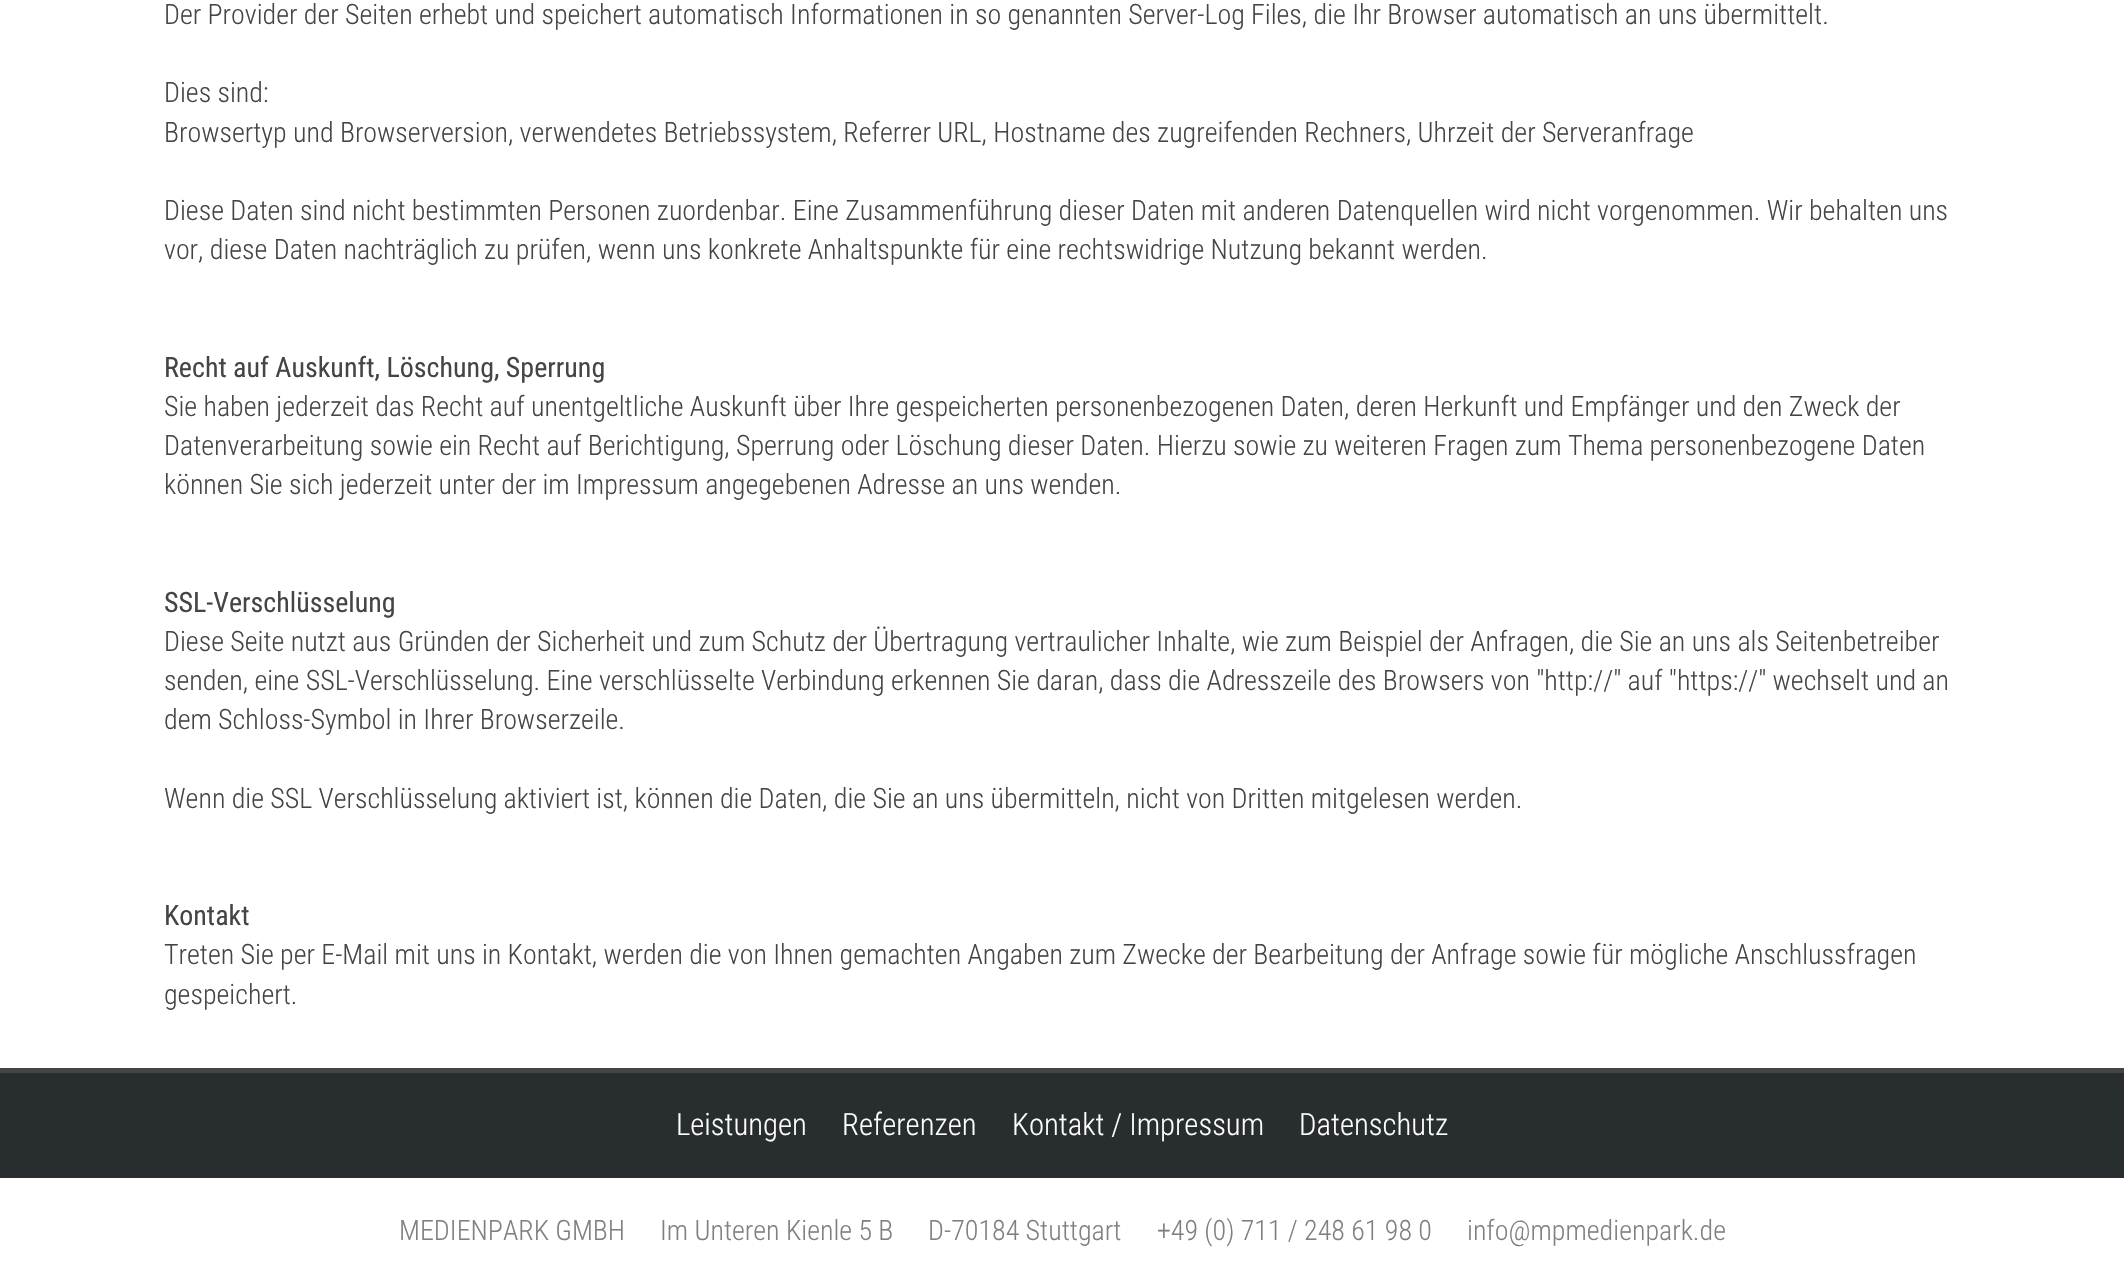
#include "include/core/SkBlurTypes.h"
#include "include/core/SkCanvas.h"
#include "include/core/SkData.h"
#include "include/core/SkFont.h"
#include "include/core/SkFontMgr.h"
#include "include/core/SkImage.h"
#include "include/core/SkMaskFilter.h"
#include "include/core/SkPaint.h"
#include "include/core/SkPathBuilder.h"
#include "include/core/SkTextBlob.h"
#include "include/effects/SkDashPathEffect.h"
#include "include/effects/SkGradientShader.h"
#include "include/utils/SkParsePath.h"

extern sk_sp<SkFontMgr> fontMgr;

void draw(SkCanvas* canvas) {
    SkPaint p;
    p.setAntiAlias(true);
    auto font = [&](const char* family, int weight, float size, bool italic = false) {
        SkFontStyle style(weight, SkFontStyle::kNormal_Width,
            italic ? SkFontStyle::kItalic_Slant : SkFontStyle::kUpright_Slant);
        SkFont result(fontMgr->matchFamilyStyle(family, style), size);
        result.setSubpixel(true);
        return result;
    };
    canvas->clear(0xFFFFFFFF);
    auto font1 = font("Roboto Condensed", 300, 28);
    p.setColor(0xFF454545);
    {
        const struct { const char* s; float x, y; } items[] = {
            {"Der Provider der Seiten erhebt und speichert automatisch Informationen in so genannten Server-Log Files, die Ihr Browser automatisch an uns übermittelt.", 164, 24},
            {"Dies sind:", 164, 102},
            {"Browsertyp und Browserversion, verwendetes Betriebssystem, Referrer URL, Hostname des zugreifenden Rechners, Uhrzeit der Serveranfrage", 164, 142},
            {"Diese Daten sind nicht bestimmten Personen zuordenbar. Eine Zusammenführung dieser Daten mit anderen Datenquellen wird nicht vorgenommen. Wir behalten uns", 164, 220},
            {"vor, diese Daten nachträglich zu prüfen, wenn uns konkrete Anhaltspunkte für eine rechtswidrige Nutzung bekannt werden.", 164, 259},
        };
        for (auto [s, x, y] : items) {
            canvas->drawString(s, x, y, font1, p);
        }
    }
    auto font2 = font("Roboto Condensed", 400, 28);
    canvas->drawString("Recht auf Auskunft, Löschung, Sperrung", 164, 377, font2, p);
    {
        const struct { const char* s; float x, y; } items[] = {
            {"Sie haben jederzeit das Recht auf unentgeltliche Auskunft über Ihre gespeicherten personenbezogenen Daten, deren Herkunft und Empfänger und den Zweck der", 164, 416},
            {"Datenverarbeitung sowie ein Recht auf Berichtigung, Sperrung oder Löschung dieser Daten. Hierzu sowie zu weiteren Fragen zum Thema personenbezogene Daten", 164, 455},
            {"können Sie sich jederzeit unter der im Impressum angegebenen Adresse an uns wenden.", 164, 494},
        };
        for (auto [s, x, y] : items) {
            canvas->drawString(s, x, y, font1, p);
        }
    }
    canvas->drawString("SSL-Verschlüsselung", 164, 612, font2, p);
    {
        const struct { const char* s; float x, y; } items[] = {
            {"Diese Seite nutzt aus Gründen der Sicherheit und zum Schutz der Übertragung vertraulicher Inhalte, wie zum Beispiel der Anfragen, die Sie an uns als Seitenbetreiber", 164, 651},
            {"senden, eine SSL-Verschlüsselung. Eine verschlüsselte Verbindung erkennen Sie daran, dass die Adresszeile des Browsers von \"http://\" auf \"https://\" wechselt und an", 164, 690},
            {"dem Schloss-Symbol in Ihrer Browserzeile.", 164, 729},
            {"Wenn die SSL Verschlüsselung aktiviert ist, können die Daten, die Sie an uns übermitteln, nicht von Dritten mitgelesen werden.", 164, 808},
        };
        for (auto [s, x, y] : items) {
            canvas->drawString(s, x, y, font1, p);
        }
    }
    canvas->drawString("Kontakt", 164, 925, font2, p);
    canvas->drawString("Treten Sie per E-Mail mit uns in Kontakt, werden die von Ihnen gemachten Angaben zum Zwecke der Bearbeitung der Anfrage sowie für mögliche Anschlussfragen", 164, 964, font1, p);
    canvas->drawString("gespeichert.", 164, 1004, font1, p);
    p.setColor(0xFF282D30);
    canvas->drawRect(SkRect::MakeLTRB(0, 1073, 2124, 1178), p);
    p.setColor(0xFF454545);
    canvas->drawRect(SkRect::MakeLTRB(0, 1068, 2124, 1073), p);
    auto font3 = font("Roboto Condensed", 300, 30.75f);
    p.setColor(0xFFFFFFFF);
    {
        const struct { const char* s; float x, y; } items[] = {
            {"Leistungen", 676, 1135},
            {"Referenzen", 842, 1135},
            {"Kontakt / Impressum", 1012, 1135},
            {"Datenschutz", 1299, 1135},
        };
        for (auto [s, x, y] : items) {
            canvas->drawString(s, x, y, font3, p);
        }
    }
    p.setColor(0xFF808080);
    {
        const struct { const char* s; float x, y; } items[] = {
            {"MEDIENPARK GMBH", 399, 1240},
            {"Im Unteren Kienle 5 B", 660, 1240},
            {"D-70184 Stuttgart", 928, 1240},
            {"+49 (0) 711 / 248 61 98 0", 1157, 1240},
            {"info@mpmedienpark.de", 1467, 1240},
        };
        for (auto [s, x, y] : items) {
            canvas->drawString(s, x, y, font1, p);
        }
    }
}
